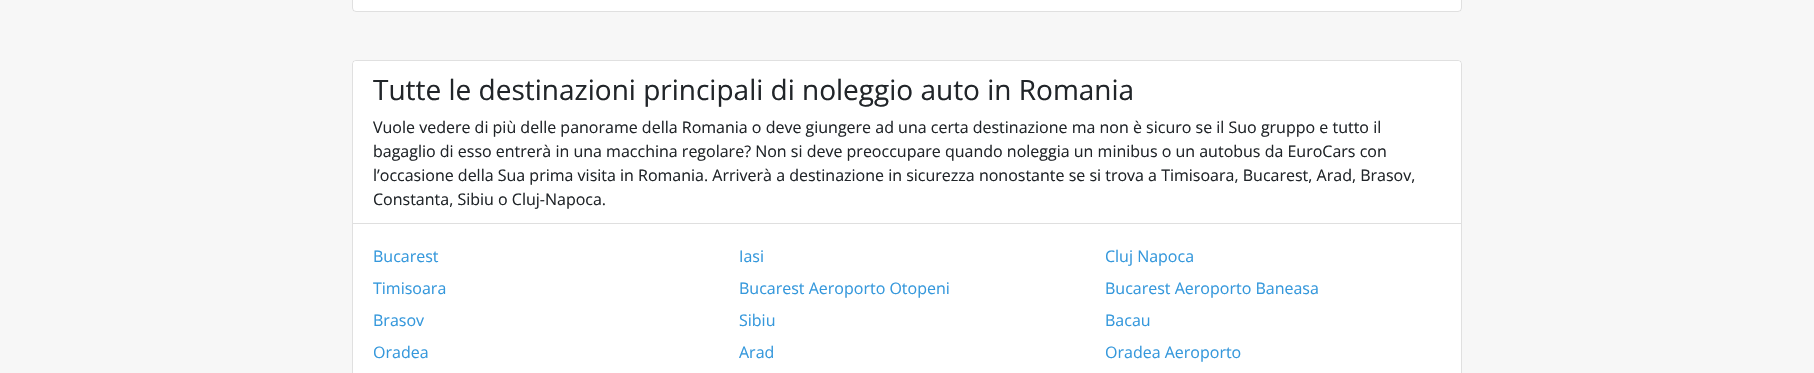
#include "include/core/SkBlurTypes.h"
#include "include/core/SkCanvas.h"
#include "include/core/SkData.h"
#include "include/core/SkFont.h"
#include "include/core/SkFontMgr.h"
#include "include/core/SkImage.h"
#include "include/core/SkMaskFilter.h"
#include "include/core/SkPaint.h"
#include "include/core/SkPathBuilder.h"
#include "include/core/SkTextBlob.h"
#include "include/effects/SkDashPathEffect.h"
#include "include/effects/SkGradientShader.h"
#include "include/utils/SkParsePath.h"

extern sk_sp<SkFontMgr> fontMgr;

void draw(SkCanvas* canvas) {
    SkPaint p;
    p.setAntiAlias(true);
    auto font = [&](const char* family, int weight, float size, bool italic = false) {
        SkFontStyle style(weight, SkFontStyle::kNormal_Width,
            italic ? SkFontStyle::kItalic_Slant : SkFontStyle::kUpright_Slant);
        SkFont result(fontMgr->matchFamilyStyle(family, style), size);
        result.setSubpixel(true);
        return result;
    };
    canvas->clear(0xFFF7F7F7);
    p.setColor(0xFFFFFFFF);
    canvas->drawRoundRect(SkRect::MakeLTRB(352, -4, 1462, 12), 4, 4, p);
    p.setStyle(SkPaint::kStroke_Style);
    p.setStrokeWidth(1);
    p.setColor(0x1F000000);
    canvas->drawRoundRect(SkRect::MakeLTRB(352.5f, -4.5f, 1461.5f, 11.5f), 3.5f, 3.5f, p);
    p.setStyle(SkPaint::kFill_Style);
    p.setColor(0xFFFFFFFF);
    canvas->drawRoundRect(SkRect::MakeLTRB(352, 60, 1462, 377), 4, 4, p);
    p.setStyle(SkPaint::kStroke_Style);
    p.setColor(0x1F000000);
    canvas->drawRoundRect(SkRect::MakeLTRB(352.5f, 60.5f, 1461.5f, 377.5f), 3.5f, 3.5f, p);
    p.setStyle(SkPaint::kFill_Style);
    p.setColor(0xFFFFFFFF);
    canvas->drawPath(SkPathBuilder().moveTo(356, 61).lineTo(1458, 61).cubicTo(1459.5f, 61, 1461, 62.5f, 1461, 64).lineTo(1461, 224).lineTo(353, 224).lineTo(353, 64).cubicTo(353, 62.5f, 354.5f, 61, 356, 61).close().detach(), p);
    p.setColor(0xFFDFDFDF);
    canvas->drawRect(SkRect::MakeLTRB(353, 223, 1461, 224), p);
    auto font1 = font("Open Sans", 400, 28);
    p.setColor(0xFF212529);
    canvas->drawString("Tutte le destinazioni principali di noleggio auto in Romania", 373, 100, font1, p);
    auto font2 = font("Open Sans", 400, 16);
    {
        const struct { const char* s; float x, y; } items[] = {
            {"Vuole vedere di più delle panorame della Romania o deve giungere ad una certa destinazione ma non è sicuro se il Suo gruppo e tutto il", 373, 133},
            {"bagaglio di esso entrerà in una macchina regolare? Non si deve preoccupare quando noleggia un minibus o un autobus da EuroCars con", 373, 157},
            {"l’occasione della Sua prima visita in Romania. Arriverà a destinazione in sicurezza nonostante se si trova a Timisoara, Bucarest, Arad, Brasov,", 373, 181},
            {"Constanta, Sibiu o Cluj-Napoca.", 373, 205},
        };
        for (auto [s, x, y] : items) {
            canvas->drawString(s, x, y, font2, p);
        }
    }
    p.setColor(0xFF3598DC);
    {
        const struct { const char* s; float x, y; } items[] = {
            {"Bucarest", 373, 262},
            {"Iasi", 739, 262},
            {"Cluj Napoca", 1105, 262},
            {"Timisoara", 373, 294},
            {"Bucarest Aeroporto Otopeni", 739, 294},
            {"Bucarest Aeroporto Baneasa", 1105, 294},
            {"Brasov", 373, 326},
            {"Sibiu", 739, 326},
            {"Bacau", 1105, 326},
            {"Oradea", 373, 358},
            {"Arad", 739, 358},
            {"Oradea Aeroporto", 1105, 358},
        };
        for (auto [s, x, y] : items) {
            canvas->drawString(s, x, y, font2, p);
        }
    }
}
